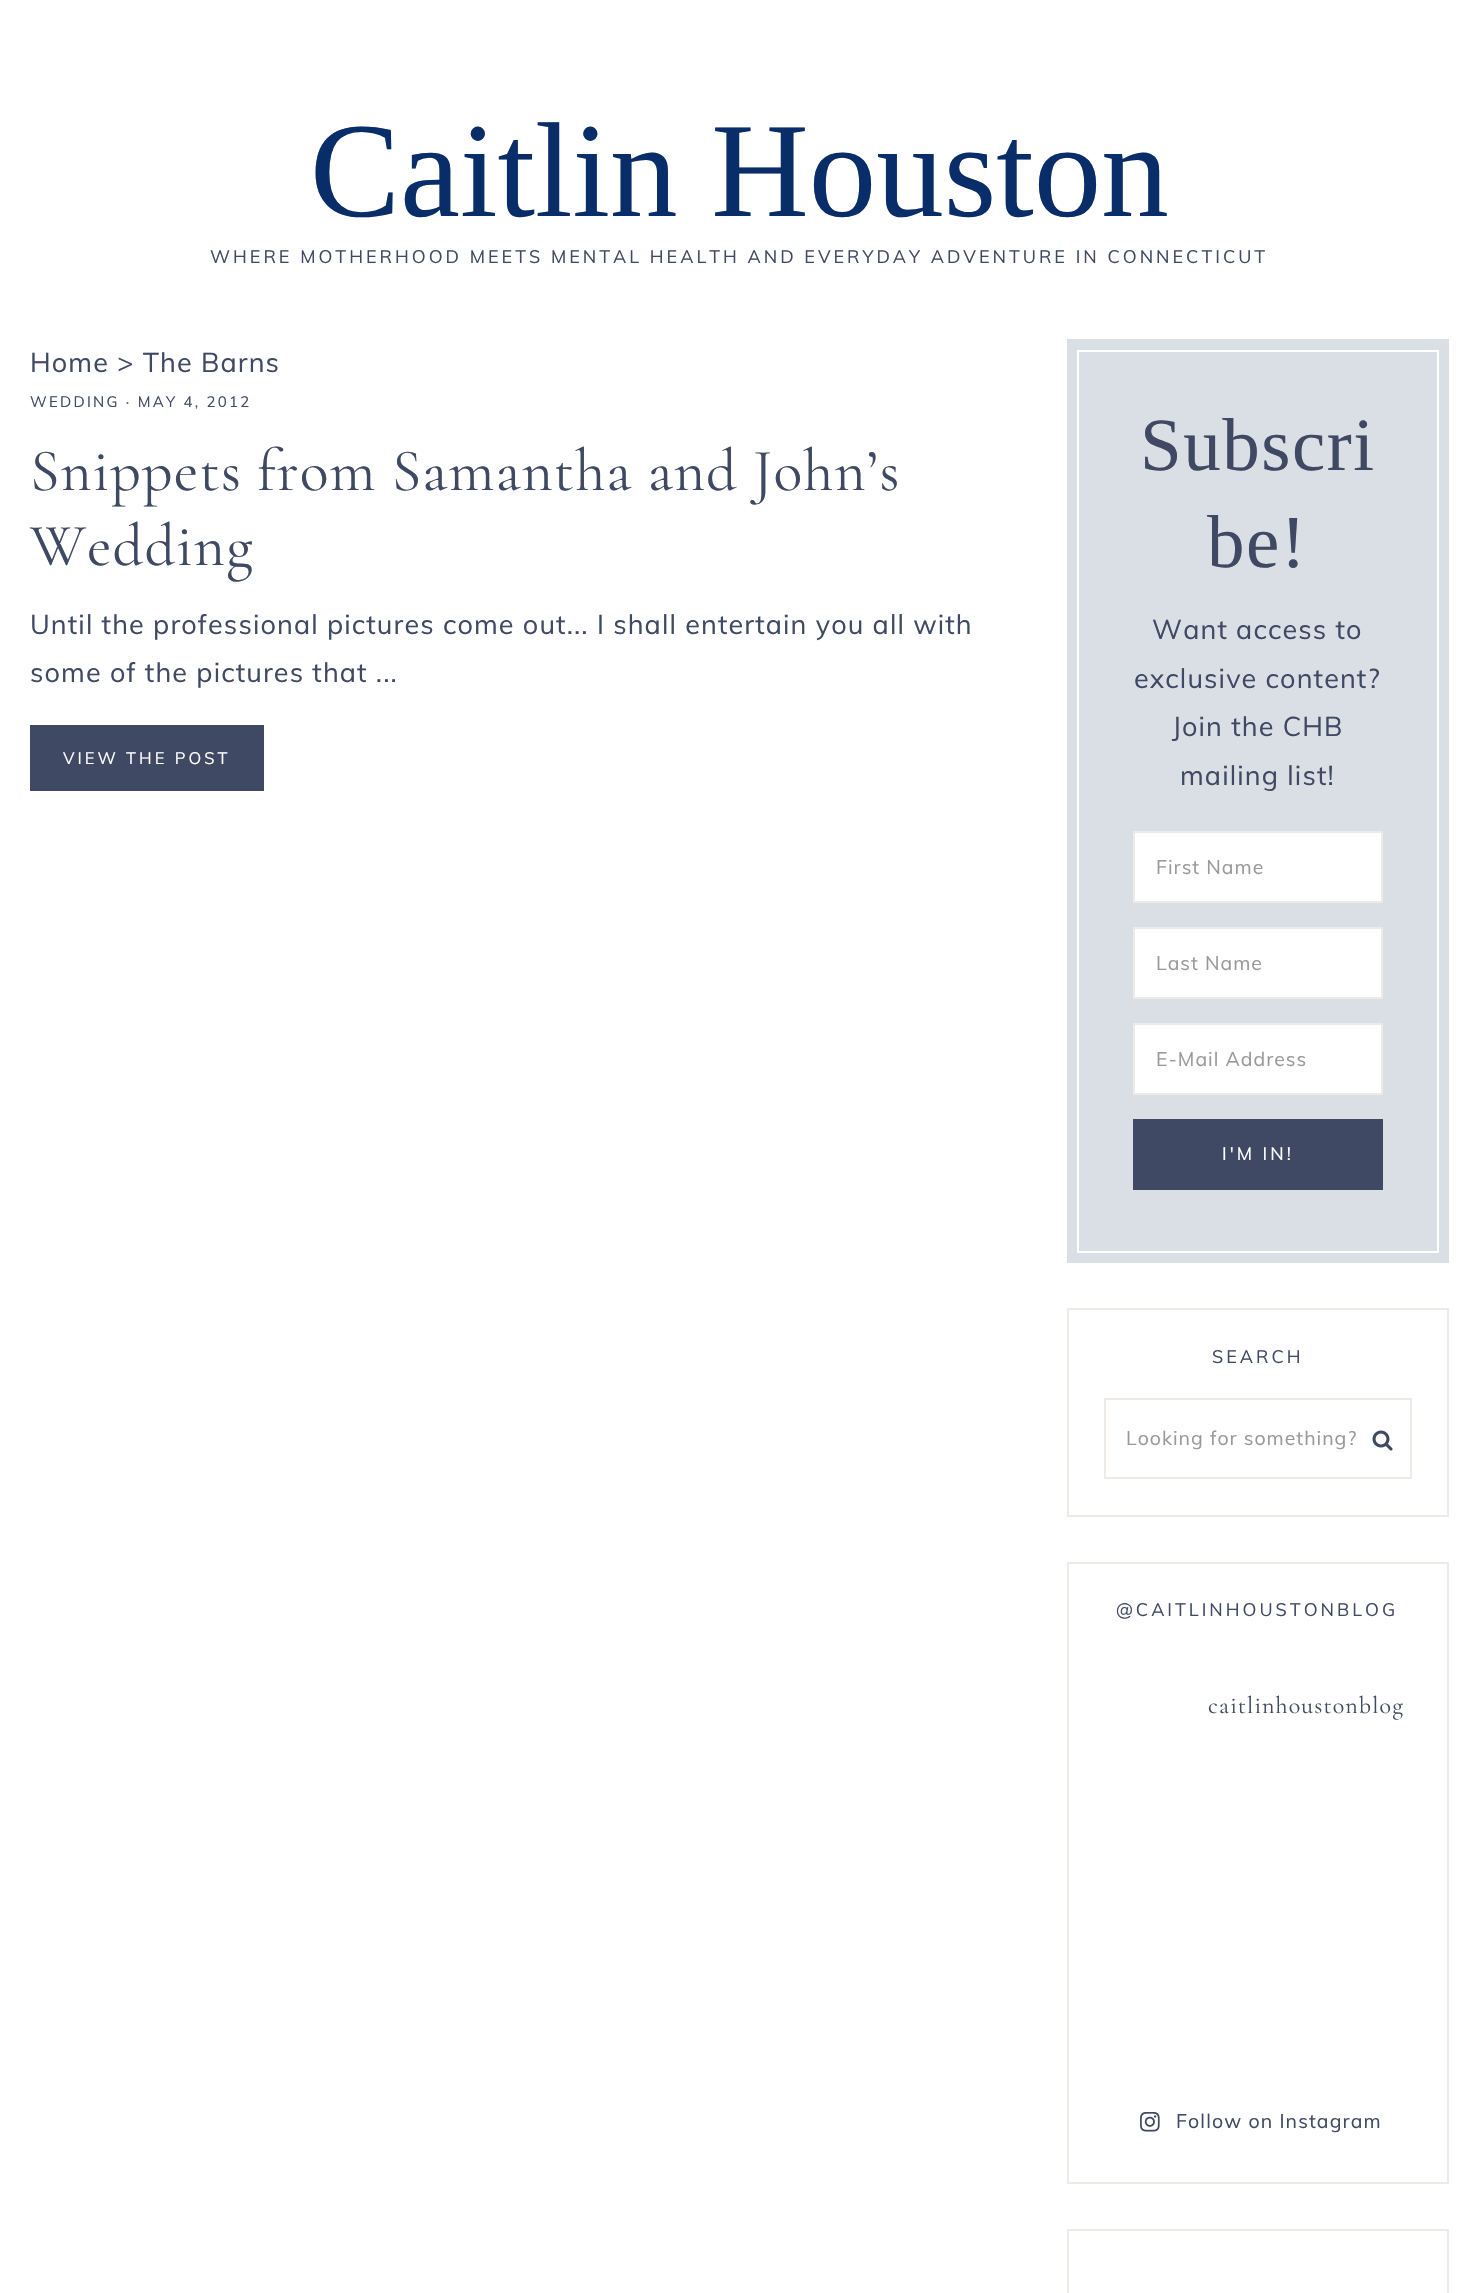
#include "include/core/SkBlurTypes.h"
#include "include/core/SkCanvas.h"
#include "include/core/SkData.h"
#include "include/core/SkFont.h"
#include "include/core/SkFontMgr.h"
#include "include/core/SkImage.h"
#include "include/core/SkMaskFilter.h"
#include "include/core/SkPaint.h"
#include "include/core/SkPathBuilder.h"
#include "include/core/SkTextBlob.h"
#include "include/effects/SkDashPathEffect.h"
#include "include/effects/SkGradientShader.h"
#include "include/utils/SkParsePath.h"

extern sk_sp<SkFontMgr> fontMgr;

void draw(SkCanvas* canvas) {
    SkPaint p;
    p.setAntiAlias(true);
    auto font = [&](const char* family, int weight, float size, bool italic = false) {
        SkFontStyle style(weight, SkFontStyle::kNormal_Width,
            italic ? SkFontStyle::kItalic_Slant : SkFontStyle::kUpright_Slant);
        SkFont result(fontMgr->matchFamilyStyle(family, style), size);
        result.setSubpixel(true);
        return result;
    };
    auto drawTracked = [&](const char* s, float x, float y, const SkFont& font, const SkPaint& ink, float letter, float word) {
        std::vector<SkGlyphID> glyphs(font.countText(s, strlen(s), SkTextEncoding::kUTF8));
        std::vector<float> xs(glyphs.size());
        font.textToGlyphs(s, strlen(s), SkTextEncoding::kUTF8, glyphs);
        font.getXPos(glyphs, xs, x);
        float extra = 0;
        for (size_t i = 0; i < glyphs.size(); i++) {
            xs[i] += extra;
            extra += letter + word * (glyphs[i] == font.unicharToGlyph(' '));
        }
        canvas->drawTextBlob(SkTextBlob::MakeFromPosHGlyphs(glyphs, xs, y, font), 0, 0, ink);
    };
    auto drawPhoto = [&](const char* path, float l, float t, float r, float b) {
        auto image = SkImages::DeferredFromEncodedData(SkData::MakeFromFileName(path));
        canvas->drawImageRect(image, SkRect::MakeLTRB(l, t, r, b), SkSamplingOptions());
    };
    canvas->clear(0xFFFFFFFF);
    auto font1 = font("Liberation Serif", 400, 135);
    p.setColor(0xFF092D68);
    canvas->drawString("Caitlin Houston", 310, 216, font1, p);
    auto font2 = font("Muli", 400, 18);
    p.setColor(0xFF404963);
    drawTracked("WHERE MOTHERHOOD MEETS MENTAL HEALTH AND EVERYDAY ADVENTURE IN CONNECTICUT", 210, 263, font2, p, 3, 0);
    auto font3 = font("Muli", 400, 27);
    drawTracked("Home > The Barns", 30, 372, font3, p, 1.12f, 0);
    auto font4 = font("Muli", 400, 15);
    drawTracked("WEDDING · MAY 4, 2012", 30, 407, font4, p, 2.25f, 0);
    auto font5 = font("Cormorant Garamond", 300, 60);
    drawTracked("Snippets from Samantha and John’s", 30, 490, font5, p, 1.12f, 0);
    drawTracked("Wedding", 30, 565, font5, p, 1.12f, 0);
    drawTracked("Until the professional pictures come out... I shall entertain you all with", 30, 634, font3, p, 1.12f, 0);
    drawTracked("some of the pictures that ...", 30, 682, font3, p, 1.12f, 0);
    canvas->drawRect(SkRect::MakeLTRB(30, 725, 264, 791), p);
    auto font6 = font("Muli", 400, 16.5f);
    p.setColor(0xFFFFFFFF);
    drawTracked("VIEW THE POST", 63, 764, font6, p, 3, 0);
    p.setColor(0xFFDADFE5);
    canvas->drawRect(SkRect::MakeLTRB(1067, 339, 1449, 1263), p);
    p.setColor(0xFFFFFFFF);
    canvas->drawRect(SkRect::MakeLTRB(1134, 832, 1382, 902), p);
    p.setStyle(SkPaint::kStroke_Style);
    p.setStrokeWidth(2);
    p.setColor(0xFFEEEAE8);
    canvas->drawRect(SkRect::MakeLTRB(1134, 832, 1382, 902), p);
    p.setStyle(SkPaint::kFill_Style);
    p.setColor(0xFFFFFFFF);
    canvas->drawRect(SkRect::MakeLTRB(1134, 928, 1382, 998), p);
    p.setStyle(SkPaint::kStroke_Style);
    p.setColor(0xFFEEEAE8);
    canvas->drawRect(SkRect::MakeLTRB(1134, 928, 1382, 998), p);
    p.setStyle(SkPaint::kFill_Style);
    p.setColor(0xFFFFFFFF);
    canvas->drawRect(SkRect::MakeLTRB(1134, 1024, 1382, 1094), p);
    p.setStyle(SkPaint::kStroke_Style);
    p.setColor(0xFFEEEAE8);
    canvas->drawRect(SkRect::MakeLTRB(1134, 1024, 1382, 1094), p);
    p.setColor(0xFFFFFFFF);
    canvas->drawRect(SkRect::MakeLTRB(1078, 351, 1438, 1252), p);
    auto font7 = font("Liberation Serif", 400, 75);
    p.setStyle(SkPaint::kFill_Style);
    p.setColor(0xFF404963);
    drawTracked("Subscri", 1140, 470, font7, p, 1.5f, 0);
    drawTracked("be!", 1207, 567, font7, p, 1.5f, 0);
    {
        const struct { const char* s; float x, y; } items[] = {
            {"Want access to", 1152, 639},
            {"exclusive content?", 1134, 688},
            {"Join the CHB", 1172, 736},
            {"mailing list!", 1180, 785},
        };
        for (auto [s, x, y] : items) {
            drawTracked(s, x, y, font3, p, 1.12f, 0);
        }
    }
    auto font8 = font("Muli", 400, 19.5f);
    p.setColor(0xFF999999);
    {
        const struct { const char* s; float x, y; } items[] = {
            {"First Name", 1156, 874},
            {"Last Name", 1156, 970},
            {"E-Mail Address", 1156, 1066},
        };
        for (auto [s, x, y] : items) {
            drawTracked(s, x, y, font8, p, 1, 0);
        }
    }
    p.setColor(0xFF404963);
    canvas->drawRect(SkRect::MakeLTRB(1133, 1119, 1383, 1190), p);
    p.setColor(0xFFFFFFFF);
    drawTracked("I'M IN!", 1222, 1160, font2, p, 3, 0);
    p.setStyle(SkPaint::kStroke_Style);
    p.setColor(0xFFEEEAE8);
    canvas->drawRect(SkRect::MakeLTRB(1068, 1309, 1448, 1516), p);
    p.setStyle(SkPaint::kFill_Style);
    p.setColor(0xFF404963);
    drawTracked("SEARCH", 1212, 1363, font2, p, 3, 0);
    p.setStyle(SkPaint::kStroke_Style);
    p.setColor(0xFFEEEAE8);
    canvas->drawRect(SkRect::MakeLTRB(1105, 1399, 1411, 1478), p);
    p.setStyle(SkPaint::kFill_Style);
    p.setColor(0xFF999999);
    drawTracked("Looking for something?", 1126, 1445, font8, p, 1, 0);
    drawPhoto("media/1.png", 1372, 1430, 1393, 1451);
    p.setStyle(SkPaint::kStroke_Style);
    p.setColor(0xFFEEEAE8);
    canvas->drawRect(SkRect::MakeLTRB(1068, 1563, 1448, 2183), p);
    p.setStyle(SkPaint::kFill_Style);
    p.setColor(0xFF404963);
    drawTracked("@CAITLINHOUSTONBLOG", 1116, 1616, font2, p, 3, 0);
    auto font9 = font("Cormorant Garamond", 300, 24);
    drawTracked("caitlinhoustonblog", 1208, 1713, font9, p, 1.12f, 0);
    drawPhoto("media/2.png", 1140, 2112, 1160, 2132);
    drawTracked("Follow on Instagram", 1176, 2128, font8, p, 1.12f, 0);
    p.setStyle(SkPaint::kStroke_Style);
    p.setColor(0xFFEEEAE8);
    canvas->drawRect(SkRect::MakeLTRB(1068, 2230, 1448, 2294), p);
}
